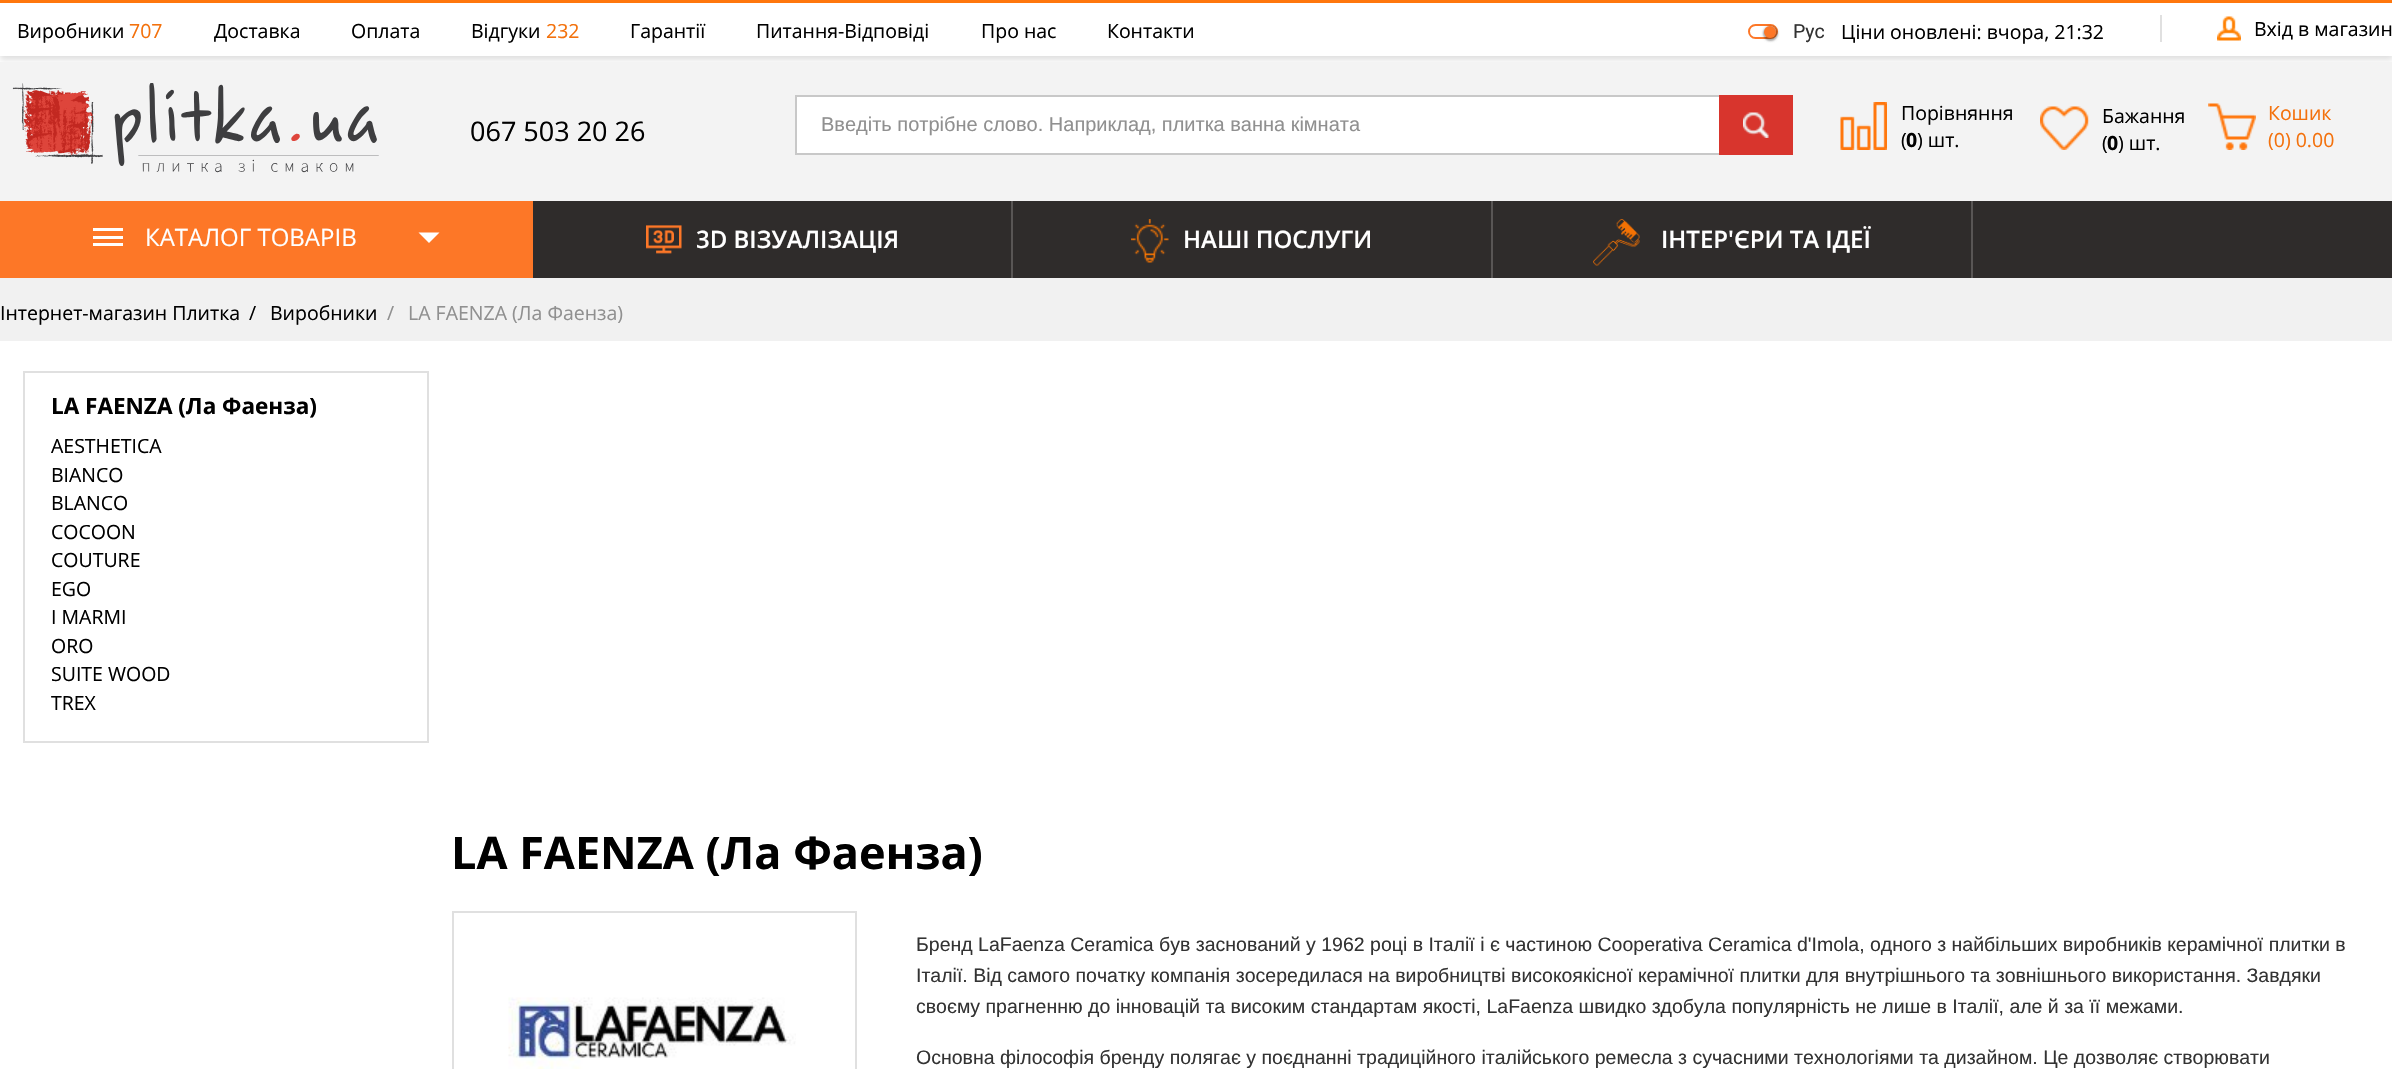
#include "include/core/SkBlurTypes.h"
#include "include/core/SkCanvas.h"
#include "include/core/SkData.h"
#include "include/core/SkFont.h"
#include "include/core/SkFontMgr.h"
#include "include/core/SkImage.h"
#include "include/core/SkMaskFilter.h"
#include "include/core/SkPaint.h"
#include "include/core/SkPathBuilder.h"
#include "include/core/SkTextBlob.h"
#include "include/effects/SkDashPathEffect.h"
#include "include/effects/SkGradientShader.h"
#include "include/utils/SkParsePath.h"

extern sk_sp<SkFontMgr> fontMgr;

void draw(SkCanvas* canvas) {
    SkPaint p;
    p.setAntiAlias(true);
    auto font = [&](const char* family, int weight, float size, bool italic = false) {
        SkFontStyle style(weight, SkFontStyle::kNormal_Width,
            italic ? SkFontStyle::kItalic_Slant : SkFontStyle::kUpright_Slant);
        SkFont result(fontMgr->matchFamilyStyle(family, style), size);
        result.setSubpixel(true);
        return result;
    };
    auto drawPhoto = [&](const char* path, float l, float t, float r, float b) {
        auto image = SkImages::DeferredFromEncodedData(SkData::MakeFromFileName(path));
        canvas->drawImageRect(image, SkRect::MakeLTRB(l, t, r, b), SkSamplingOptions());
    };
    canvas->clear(0xFFFFFFFF);
    p.setColor(0xFFE0E0E0);
    p.setMaskFilter(SkMaskFilter::MakeBlur(kNormal_SkBlurStyle, 3));
    canvas->drawRect(SkRect::MakeLTRB(0, 5, 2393, 60), p);
    p.setMaskFilter(nullptr);
    p.setColor(0xFFFFFFFF);
    canvas->drawRect(SkRect::MakeLTRB(0, 3, 2392, 56), p);
    p.setColor(0xFFFF770D);
    canvas->drawRect(SkRect::MakeLTRB(0, 0, 2392, 3), p);
    auto font1 = font("Open Sans", 400, 19.5f);
    p.setColor(0xFF000000);
    canvas->drawString("Виробники", 17, 38, font1, p);
    p.setColor(0xFFF3710C);
    canvas->drawString("707", 129, 38, font1, p);
    p.setColor(0xFF000000);
    {
        const struct { const char* s; float x, y; } items[] = {
            {"Доставка", 214, 38},
            {"Оплата", 351, 38},
            {"Відгуки", 471, 38},
        };
        for (auto [s, x, y] : items) {
            canvas->drawString(s, x, y, font1, p);
        }
    }
    p.setColor(0xFFF3710C);
    canvas->drawString("232", 546, 38, font1, p);
    p.setColor(0xFF000000);
    {
        const struct { const char* s; float x, y; } items[] = {
            {"Гарантії", 630, 38},
            {"Питання-Відповіді", 756, 38},
            {"Про нас", 981, 38},
            {"Контакти", 1107, 38},
        };
        for (auto [s, x, y] : items) {
            canvas->drawString(s, x, y, font1, p);
        }
    }
    p.setStyle(SkPaint::kStroke_Style);
    p.setStrokeWidth(2);
    p.setColor(0xFFFD7727);
    canvas->drawRoundRect(SkRect::MakeLTRB(1749, 25, 1777, 38), 6.5f, 6.5f, p);
    p.setStyle(SkPaint::kFill_Style);
    p.setColor(0x2E000000);
    p.setMaskFilter(SkMaskFilter::MakeBlur(kNormal_SkBlurStyle, 1));
    canvas->drawRoundRect(SkRect::MakeLTRB(1763, 26, 1778, 41), 7.5f, 7.5f, p);
    p.setMaskFilter(nullptr);
    p.setMaskFilter(SkMaskFilter::MakeBlur(kNormal_SkBlurStyle, 1));
    canvas->drawRoundRect(SkRect::MakeLTRB(1763, 26, 1778, 41), 7.5f, 7.5f, p);
    p.setMaskFilter(nullptr);
    p.setColor(0xFFFD7727);
    canvas->drawCircle(1770, 32, 6, p);
    auto font2 = font("Roboto", 400, 19.5f);
    p.setColor(0xFF333333);
    canvas->drawString("Рус", 1793, 38, font2, p);
    p.setColor(0xFF000000);
    canvas->drawString("Ціни оновлені: вчора, 21:32", 1841, 39, font1, p);
    p.setColor(0xFFE0E0E0);
    canvas->drawRect(SkRect::MakeLTRB(2160, 15, 2162, 42), p);
    drawPhoto("media/1.png", 2217, 16, 2241, 41);
    p.setColor(0xFF000000);
    canvas->drawString("Вхід в магазин", 2254, 36, font1, p);
    p.setColor(0xFFF3F3F3);
    canvas->drawRect(SkRect::MakeLTRB(0, 62, 2392, 201), p);
    drawPhoto("media/2.png", 12, 83, 379, 173);
    auto font3 = font("Open Sans", 400, 27);
    p.setColor(0xFF000000);
    canvas->drawString("067 503 20 26", 470, 141, font3, p);
    {
        const struct { float l, t, r, b; SkColor color; } items[] = {
            {797, 97, 1719, 153, 0xFFFFFFFF},
            {795, 95, 1719, 97, 0xFFC8C8C8},
            {795, 153, 1719, 155, 0xFFC8C8C8},
            {795, 95, 797, 155, 0xFFC8C8C8},
        };
        for (auto [l, t, r, b, color] : items) {
            p.setColor(color);
            canvas->drawRect(SkRect::MakeLTRB(l, t, r, b), p);
        }
    }
    auto font4 = font("Liberation Sans", 400, 20);
    p.setColor(0xFF909090);
    canvas->drawString("Введіть потрібне слово. Наприклад, плитка ванна кімната", 821, 131, font4, p);
    p.setColor(0xFFD8352D);
    canvas->drawRect(SkRect::MakeLTRB(1719, 95, 1793, 155), p);
    drawPhoto("media/3.png", 1743, 112, 1769, 138);
    drawPhoto("media/4.png", 1840, 102, 1887, 150);
    p.setColor(0xFF000000);
    canvas->drawString("Порівняння", 1901, 120, font1, p);
    canvas->drawString("(", 1901, 147, font1, p);
    auto font5 = font("Open Sans", 700, 19.5f);
    canvas->drawString("0", 1906, 147, font5, p);
    canvas->drawString(") шт.", 1917, 147, font1, p);
    drawPhoto("media/5.png", 2040, 106, 2090, 150);
    canvas->drawString("Бажання", 2102, 123, font1, p);
    canvas->drawString("(", 2102, 150, font1, p);
    canvas->drawString("0", 2107, 150, font5, p);
    canvas->drawString(") шт.", 2118, 150, font1, p);
    drawPhoto("media/6.png", 2208, 103, 2256, 150);
    p.setColor(0xFFF3710C);
    canvas->drawString("Кошик", 2268, 120, font1, p);
    canvas->drawString("(0) 0.00", 2268, 147, font1, p);
    {
        const struct { float l, t, r, b; SkColor color; } items[] = {
            {533, 201, 2392, 278, 0xFF2F2C2B},
            {0, 201, 533, 278, 0xFFFD7727},
            {93, 228, 123, 231, 0xFFFFFFFF},
            {93, 236, 123, 239, 0xFFFFFFFF},
            {93, 243, 123, 246, 0xFFFFFFFF},
        };
        for (auto [l, t, r, b, color] : items) {
            p.setColor(color);
            canvas->drawRect(SkRect::MakeLTRB(l, t, r, b), p);
        }
    }
    auto font6 = font("Open Sans", 400, 24);
    canvas->drawString("КАТАЛОГ ТОВАРІВ", 145, 246, font6, p);
    canvas->drawPath(SkPathBuilder().moveTo(418.5f, 232.5f).lineTo(439.5f, 232.5f).lineTo(429, 243).close().detach(), p);
    p.setColor(0xFF595655);
    canvas->drawRect(SkRect::MakeLTRB(1011, 201, 1013, 278), p);
    drawPhoto("media/7.png", 646, 225, 682, 254);
    auto font7 = font("Open Sans", 600, 24);
    p.setColor(0xFFFFFFFF);
    canvas->drawString("3D ВІЗУАЛІЗАЦІЯ", 696, 248, font7, p);
    p.setColor(0xFF595655);
    canvas->drawRect(SkRect::MakeLTRB(1491, 201, 1493, 278), p);
    drawPhoto("media/8.png", 1131, 219, 1169, 263);
    p.setColor(0xFFFFFFFF);
    canvas->drawString("НАШІ ПОСЛУГИ", 1183, 248, font7, p);
    p.setColor(0xFF595655);
    canvas->drawRect(SkRect::MakeLTRB(1971, 201, 1973, 278), p);
    drawPhoto("media/9.png", 1593, 219, 1640, 266);
    p.setColor(0xFFFFFFFF);
    canvas->drawString("ІНТЕР'ЄРИ ТА ІДЕЇ", 1661, 248, font7, p);
    p.setColor(0xFFF1F1F1);
    canvas->drawRect(SkRect::MakeLTRB(0, 278, 2392, 341), p);
    p.setColor(0xFF000000);
    {
        const struct { const char* s; float x, y; } items[] = {
            {"Інтернет-магазин Плитка", 0, 320},
            {"/", 249, 320},
            {"Виробники", 270, 320},
        };
        for (auto [s, x, y] : items) {
            canvas->drawString(s, x, y, font1, p);
        }
    }
    p.setColor(0xFF909090);
    canvas->drawString("/", 387, 320, font1, p);
    canvas->drawString("LA FAENZA (Ла Фаенза)", 408, 320, font1, p);
    p.setStyle(SkPaint::kStroke_Style);
    p.setColor(0xFFE0E0E0);
    canvas->drawRect(SkRect::MakeLTRB(24, 372, 428, 742), p);
    auto font8 = font("Open Sans", 700, 22.5f);
    p.setStyle(SkPaint::kFill_Style);
    p.setColor(0xFF000000);
    canvas->drawString("LA FAENZA (Ла Фаенза)", 51, 414, font8, p);
    {
        const struct { const char* s; float x, y; } items[] = {
            {"AESTHETICA", 51, 453},
            {"BIANCO", 51, 482},
            {"BLANCO", 51, 510},
            {"COCOON", 51, 539},
            {"COUTURE", 51, 567},
            {"EGO", 51, 596},
            {"I MARMI", 51, 624},
            {"ORO", 51, 653},
            {"SUITE WOOD", 51, 681},
            {"TREX", 51, 710},
        };
        for (auto [s, x, y] : items) {
            canvas->drawString(s, x, y, font1, p);
        }
    }
    auto font9 = font("Open Sans", 700, 45);
    canvas->drawString("LA FAENZA (Ла Фаенза)", 451, 869, font9, p);
    p.setStyle(SkPaint::kStroke_Style);
    p.setColor(0xFFE0E0E0);
    canvas->drawRect(SkRect::MakeLTRB(453, 912, 856, 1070), p);
    drawPhoto("media/10.png", 508, 997, 796, 1069);
    auto font10 = font("Liberation Sans", 400, 19.5f);
    p.setStyle(SkPaint::kFill_Style);
    p.setColor(0xFF333333);
    {
        const struct { const char* s; float x, y; } items[] = {
            {"Бренд LaFaenza Ceramica був заснований у 1962 році в Італії і є частиною Cooperativa Ceramica d'Imola, одного з найбільших виробників керамічної плитки в", 916, 951},
            {"Італії. Від самого початку компанія зосередилася на виробництві високоякісної керамічної плитки для внутрішнього та зовнішнього використання. Завдяки", 916, 982},
            {"своєму прагненню до інновацій та високим стандартам якості, LaFaenza швидко здобула популярність не лише в Італії, але й за її межами.", 916, 1013},
            {"Основна філософія бренду полягає у поєднанні традиційного італійського ремесла з сучасними технологіями та дизайном. Це дозволяє створювати", 916, 1064},
        };
        for (auto [s, x, y] : items) {
            canvas->drawString(s, x, y, font10, p);
        }
    }
}
